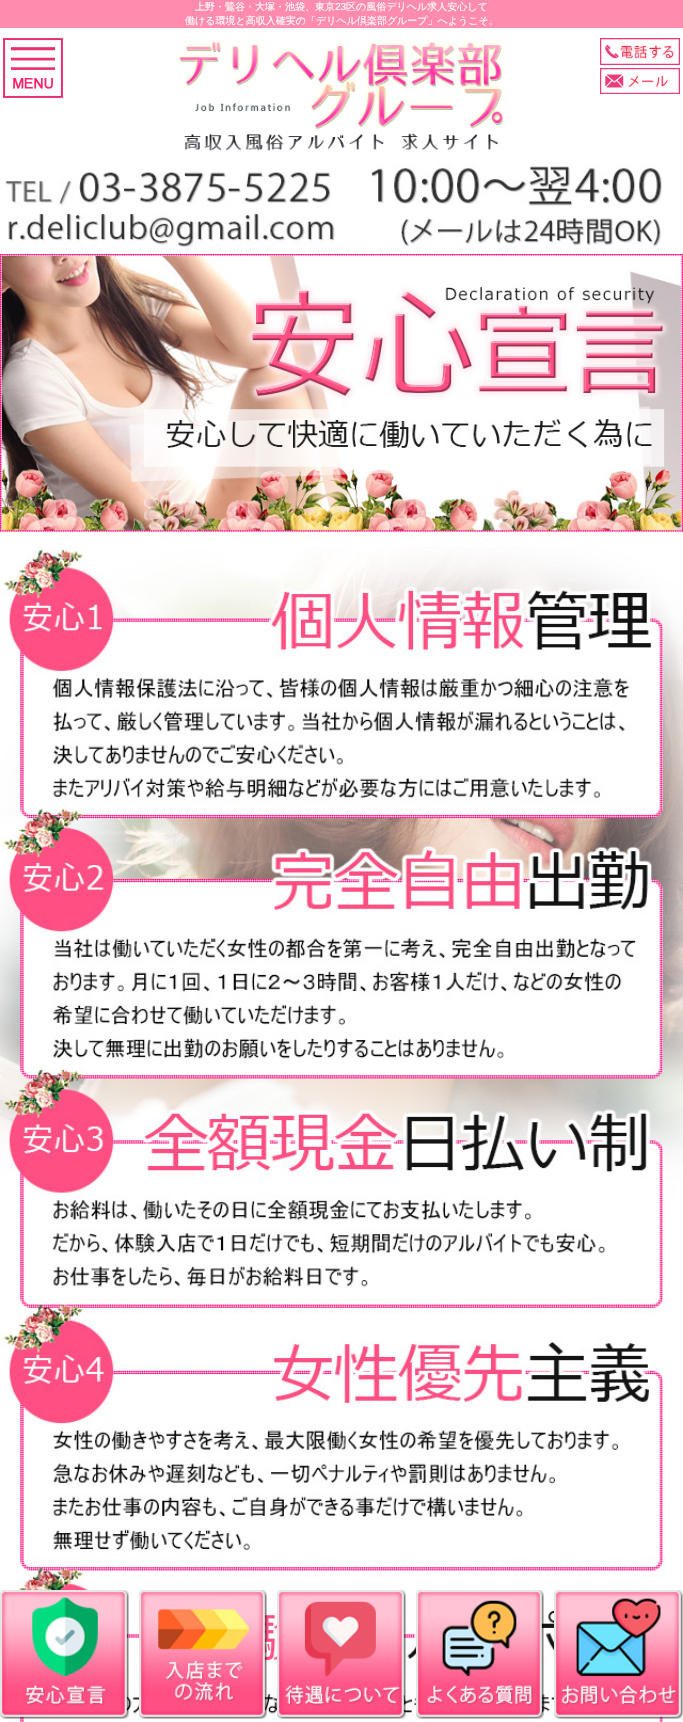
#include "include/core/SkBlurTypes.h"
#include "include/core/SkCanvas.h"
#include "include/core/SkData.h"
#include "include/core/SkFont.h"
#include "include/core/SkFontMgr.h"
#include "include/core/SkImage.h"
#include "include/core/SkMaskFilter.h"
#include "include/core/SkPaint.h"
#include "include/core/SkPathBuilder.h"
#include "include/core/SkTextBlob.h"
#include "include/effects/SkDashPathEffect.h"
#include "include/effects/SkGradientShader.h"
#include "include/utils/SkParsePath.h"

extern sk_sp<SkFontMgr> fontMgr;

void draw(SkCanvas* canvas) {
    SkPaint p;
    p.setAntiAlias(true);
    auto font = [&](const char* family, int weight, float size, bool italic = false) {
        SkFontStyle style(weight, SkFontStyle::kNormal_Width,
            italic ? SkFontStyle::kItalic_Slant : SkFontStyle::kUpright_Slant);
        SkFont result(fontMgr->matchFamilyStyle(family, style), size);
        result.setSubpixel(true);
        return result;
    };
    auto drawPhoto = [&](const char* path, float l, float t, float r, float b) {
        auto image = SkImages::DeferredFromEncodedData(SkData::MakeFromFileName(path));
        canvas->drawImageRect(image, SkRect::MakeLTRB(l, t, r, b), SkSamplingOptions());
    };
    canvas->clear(0xFFFFFFFF);
    p.setColor(0xFFFF8CAE);
    canvas->drawRect(SkRect::MakeLTRB(0, 0, 683, 28), p);
    auto font1 = font("WenQuanYi Zen Hei", 500, 10);
    p.setColor(0xFFFFFFFF);
    canvas->drawString("上野・鶯谷・大塚・池袋、東京", 195, 10, font1, p);
    auto font2 = font("Liberation Sans", 400, 10);
    canvas->drawString("23", 335, 10, font2, p);
    canvas->drawString("区の風俗デリヘル求人安心して", 346, 10, font1, p);
    canvas->drawString("働ける環境と高収入確実の「デリヘル倶楽部グループ」へようこそ。", 185, 24, font1, p);
    drawPhoto("media/1.png", 3, 38, 63, 98);
    drawPhoto("media/2.png", 178, 40, 505, 151);
    drawPhoto("media/3.png", 600, 38, 680, 65);
    drawPhoto("media/4.png", 600, 68, 680, 94);
    drawPhoto("media/5.png", 5, 172, 331, 205);
    drawPhoto("media/6.png", 371, 163, 662, 206);
    drawPhoto("media/7.png", 8, 213, 335, 248);
    drawPhoto("media/8.png", 401, 218, 661, 247);
    drawPhoto("media/9.png", 0, 254, 683, 533);
    drawPhoto("media/10.png", 0, 546, 683, 1722);
    drawPhoto("media/11.png", 0, 1590, 129, 1719);
    drawPhoto("media/12.png", 139, 1590, 267, 1719);
    drawPhoto("media/13.png", 277, 1590, 406, 1719);
    drawPhoto("media/14.png", 416, 1590, 544, 1719);
    drawPhoto("media/15.png", 554, 1590, 683, 1719);
}
